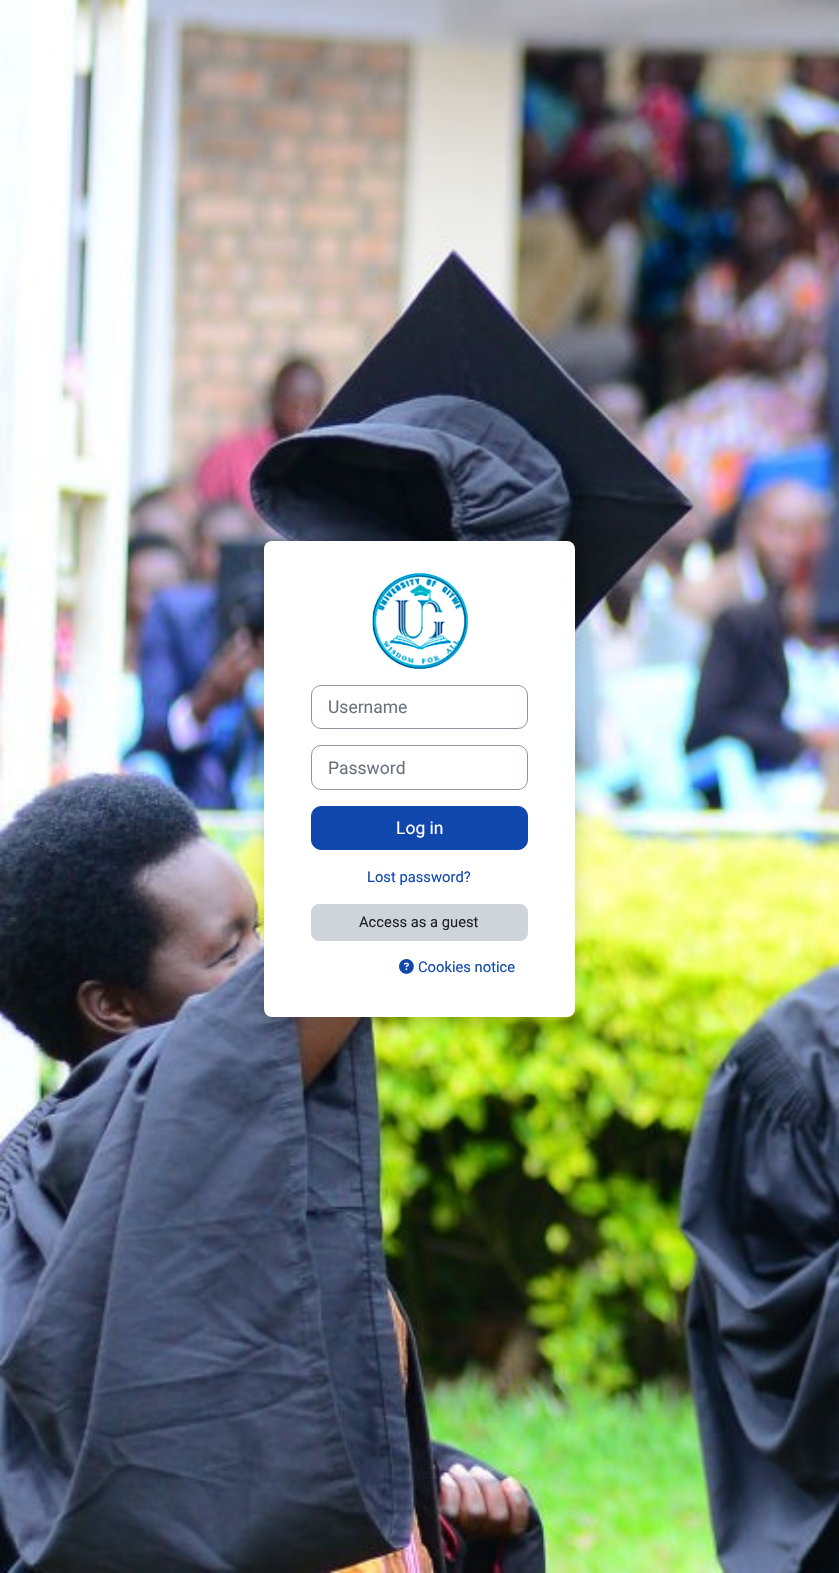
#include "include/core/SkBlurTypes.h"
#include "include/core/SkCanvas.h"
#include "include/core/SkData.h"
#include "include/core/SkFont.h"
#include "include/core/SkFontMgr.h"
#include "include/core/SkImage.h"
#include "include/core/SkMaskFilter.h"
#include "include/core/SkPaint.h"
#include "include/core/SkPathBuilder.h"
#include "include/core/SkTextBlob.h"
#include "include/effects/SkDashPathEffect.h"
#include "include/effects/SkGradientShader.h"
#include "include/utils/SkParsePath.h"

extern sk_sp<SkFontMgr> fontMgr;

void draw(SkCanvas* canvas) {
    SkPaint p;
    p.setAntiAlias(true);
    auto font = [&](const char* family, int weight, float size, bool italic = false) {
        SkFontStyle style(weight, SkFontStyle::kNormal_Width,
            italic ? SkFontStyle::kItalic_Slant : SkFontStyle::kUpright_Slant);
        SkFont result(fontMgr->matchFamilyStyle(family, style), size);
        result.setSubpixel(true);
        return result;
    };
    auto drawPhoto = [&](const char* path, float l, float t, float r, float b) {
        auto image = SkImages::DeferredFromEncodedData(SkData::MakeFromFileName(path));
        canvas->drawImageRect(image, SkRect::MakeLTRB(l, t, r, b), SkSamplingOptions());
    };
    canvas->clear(0xFFFFFFFF);
    drawPhoto("media/1.png", 0, 0, 839, 1573);
    p.setColor(0x26000000);
    p.setMaskFilter(SkMaskFilter::MakeBlur(kNormal_SkBlurStyle, 8));
    canvas->drawRoundRect(SkRect::MakeLTRB(264, 549, 575, 1025), 8, 8, p);
    p.setMaskFilter(nullptr);
    p.setColor(0xFFFFFFFF);
    canvas->drawRoundRect(SkRect::MakeLTRB(264, 541, 575, 1017), 8, 8, p);
    drawPhoto("media/2.png", 372, 573, 468, 669);
    p.setStyle(SkPaint::kStroke_Style);
    p.setStrokeWidth(1);
    p.setColor(0xFF8F959E);
    canvas->drawRoundRect(SkRect::MakeLTRB(311.5f, 685.5f, 527.5f, 728.5f), 9.5f, 9.5f, p);
    auto font1 = font("Roboto", 400, 17.5f);
    p.setStyle(SkPaint::kFill_Style);
    p.setColor(0xFF6A737B);
    canvas->drawString("Username", 328, 713, font1, p);
    p.setStyle(SkPaint::kStroke_Style);
    p.setColor(0xFF8F959E);
    canvas->drawRoundRect(SkRect::MakeLTRB(311.5f, 745.5f, 527.5f, 789.5f), 9.5f, 9.5f, p);
    p.setStyle(SkPaint::kFill_Style);
    p.setColor(0xFF6A737B);
    canvas->drawString("Password", 328, 774, font1, p);
    p.setColor(0xFF0F47AD);
    canvas->drawRoundRect(SkRect::MakeLTRB(311.5f, 806.5f, 527.5f, 849.5f), 9.5f, 9.5f, p);
    p.setStyle(SkPaint::kStroke_Style);
    canvas->drawRoundRect(SkRect::MakeLTRB(311.5f, 806.5f, 527.5f, 849.5f), 9.5f, 9.5f, p);
    p.setStyle(SkPaint::kFill_Style);
    p.setColor(0xFFFFFFFF);
    canvas->drawString("Log in", 396, 834, font1, p);
    auto font2 = font("Roboto", 400, 14.75f);
    p.setColor(0xFF0F47AD);
    canvas->drawString("Lost password?", 367, 882, font2, p);
    p.setColor(0xFFCED4DA);
    canvas->drawRoundRect(SkRect::MakeLTRB(311.5f, 904.5f, 527.5f, 940.5f), 7.5f, 7.5f, p);
    p.setStyle(SkPaint::kStroke_Style);
    canvas->drawRoundRect(SkRect::MakeLTRB(311.5f, 904.5f, 527.5f, 940.5f), 7.5f, 7.5f, p);
    p.setStyle(SkPaint::kFill_Style);
    p.setColor(0xFF1D2125);
    canvas->drawString("Access as a guest", 359, 927, font2, p);
    drawPhoto("media/3.png", 399, 959, 414, 974);
    p.setColor(0xFF0F47AD);
    canvas->drawString("Cookies notice", 418, 972, font2, p);
}
